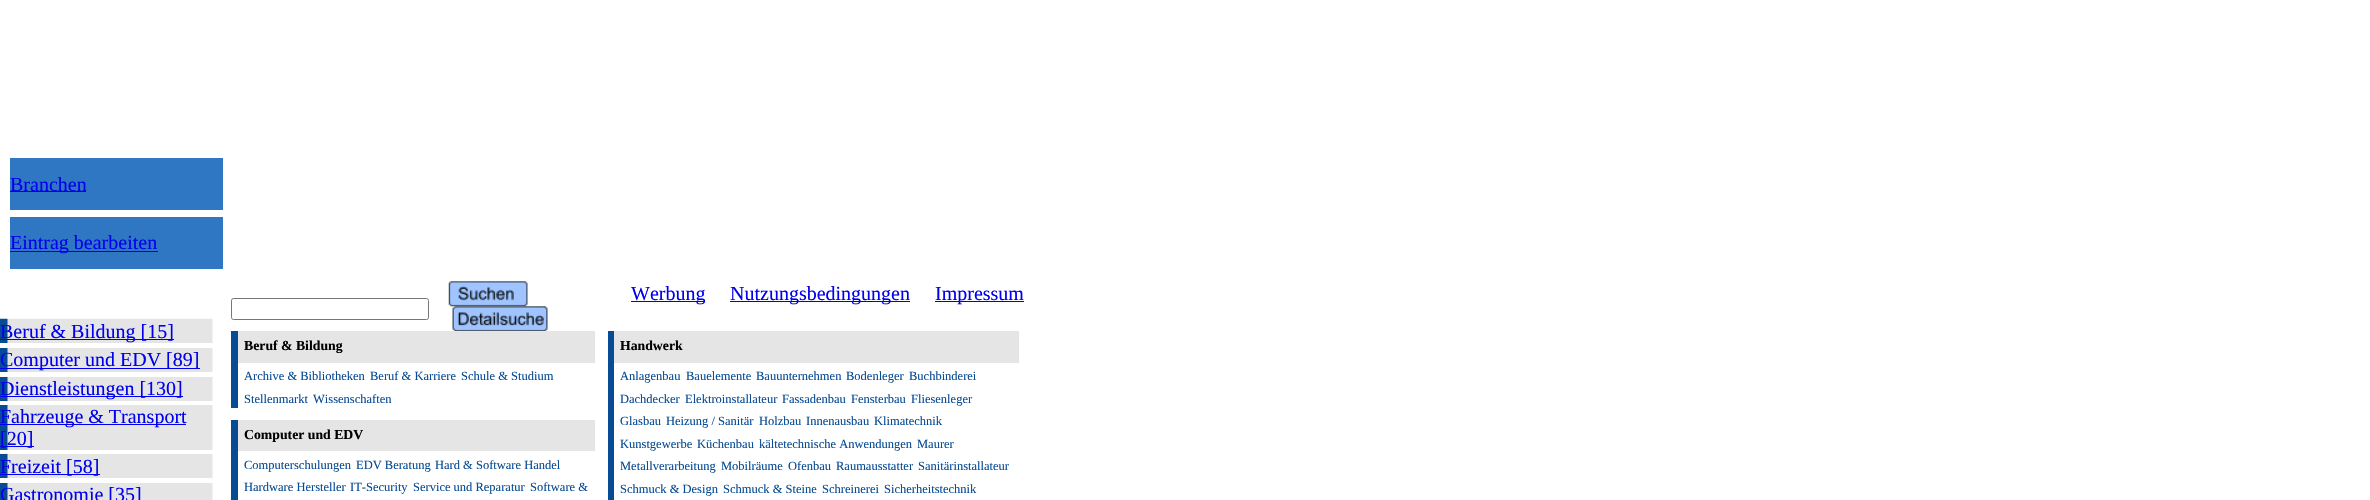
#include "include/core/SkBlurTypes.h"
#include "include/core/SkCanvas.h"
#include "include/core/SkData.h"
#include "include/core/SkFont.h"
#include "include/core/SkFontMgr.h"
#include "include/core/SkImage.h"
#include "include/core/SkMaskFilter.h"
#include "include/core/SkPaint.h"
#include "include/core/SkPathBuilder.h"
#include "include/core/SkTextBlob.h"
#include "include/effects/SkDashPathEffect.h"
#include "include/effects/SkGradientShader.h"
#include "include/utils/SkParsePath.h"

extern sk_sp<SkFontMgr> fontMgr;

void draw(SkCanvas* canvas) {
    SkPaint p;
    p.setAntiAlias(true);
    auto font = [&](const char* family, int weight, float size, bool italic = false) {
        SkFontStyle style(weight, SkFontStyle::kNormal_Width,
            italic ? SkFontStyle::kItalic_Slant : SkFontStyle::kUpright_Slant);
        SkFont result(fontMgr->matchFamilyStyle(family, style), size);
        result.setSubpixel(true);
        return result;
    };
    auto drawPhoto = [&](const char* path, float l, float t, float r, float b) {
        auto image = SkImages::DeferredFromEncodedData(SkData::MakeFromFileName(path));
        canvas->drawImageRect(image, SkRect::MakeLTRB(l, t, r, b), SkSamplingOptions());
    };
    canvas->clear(0xFFFFFFFF);
    p.setColor(0xFF2F77C3);
    canvas->drawRect(SkRect::MakeLTRB(10, 158, 223, 210), p);
    p.setColor(0xFF0000EE);
    canvas->drawRect(SkRect::MakeLTRB(10, 191, 86, 192), p);
    auto font1 = font("Liberation Serif", 400, 20);
    canvas->drawString("Branchen", 10, 191, font1, p);
    p.setColor(0xFF2F77C3);
    canvas->drawRect(SkRect::MakeLTRB(10, 217, 223, 269), p);
    p.setColor(0xFF0000EE);
    canvas->drawRect(SkRect::MakeLTRB(10, 251, 158, 252), p);
    canvas->drawString("Eintrag bearbeiten", 10, 249, font1, p);
    p.setStyle(SkPaint::kStroke_Style);
    p.setStrokeWidth(1);
    p.setColor(0xFF767676);
    canvas->drawRoundRect(SkRect::MakeLTRB(231.5f, 298.5f, 428.5f, 319.5f), 2, 2, p);
    drawPhoto("media/1.png", 448, 281, 528, 307);
    drawPhoto("media/2.png", 452, 306, 548, 331);
    p.setStyle(SkPaint::kFill_Style);
    p.setColor(0xFF0000EE);
    canvas->drawRect(SkRect::MakeLTRB(631, 301, 705, 302), p);
    canvas->drawString("Werbung", 631, 300, font1, p);
    canvas->drawRect(SkRect::MakeLTRB(730, 301, 910, 302), p);
    canvas->drawString("Nutzungsbedingungen", 730, 300, font1, p);
    canvas->drawRect(SkRect::MakeLTRB(935, 301, 1024, 302), p);
    canvas->drawString("Impressum", 935, 300, font1, p);
    drawPhoto("media/3.png", 0, 318, 213, 344);
    canvas->drawRect(SkRect::MakeLTRB(0, 339, 174, 340), p);
    canvas->drawString("Beruf & Bildung [15]", 0, 338, font1, p);
    drawPhoto("media/4.png", 0, 347, 213, 373);
    p.setColor(0xFFFFFFFF);
    canvas->drawRect(SkRect::MakeLTRB(0, 343, 212, 348), p);
    p.setColor(0xFF0000EE);
    canvas->drawRect(SkRect::MakeLTRB(0, 368, 200, 369), p);
    canvas->drawString("Computer und EDV [89]", 0, 366, font1, p);
    drawPhoto("media/5.png", 0, 376, 213, 402);
    p.setColor(0xFFFFFFFF);
    canvas->drawRect(SkRect::MakeLTRB(0, 372, 212, 377), p);
    p.setColor(0xFF0000EE);
    canvas->drawRect(SkRect::MakeLTRB(0, 396, 183, 397), p);
    canvas->drawString("Dienstleistungen [130]", 0, 395, font1, p);
    p.setColor(0xBFFFFFFF);
    canvas->drawRect(SkRect::MakeLTRB(0, 401, 212, 402), p);
    drawPhoto("media/6.png", 0, 405, 213, 450);
    p.setColor(0xFF0000EE);
    canvas->drawRect(SkRect::MakeLTRB(0, 424, 186, 425), p);
    canvas->drawString("Fahrzeuge & Transport", 0, 423, font1, p);
    canvas->drawRect(SkRect::MakeLTRB(0, 446, 34, 447), p);
    canvas->drawString("[20]", 0, 445, font1, p);
    drawPhoto("media/3.png", 0, 453, 213, 479);
    p.setColor(0xBFFFFFFF);
    canvas->drawRect(SkRect::MakeLTRB(0, 453, 212, 454), p);
    p.setColor(0xFF0000EE);
    canvas->drawRect(SkRect::MakeLTRB(0, 474, 100, 475), p);
    canvas->drawString("Freizeit [58]", 0, 473, font1, p);
    drawPhoto("media/7.png", 0, 482, 213, 500);
    p.setColor(0xFFFFFFFF);
    canvas->drawRect(SkRect::MakeLTRB(0, 478, 212, 483), p);
    p.setColor(0xFF0000EE);
    canvas->drawString("Gastronomie [35]", 0, 501, font1, p);
    p.setColor(0xFF074B94);
    canvas->drawRect(SkRect::MakeLTRB(231, 331, 238, 408), p);
    p.setColor(0xFFE5E5E5);
    canvas->drawRect(SkRect::MakeLTRB(238, 331, 595, 363), p);
    auto font2 = font("Liberation Serif", 700, 13.75f);
    p.setColor(0xFF000000);
    canvas->drawString("Beruf & Bildung", 244, 350, font2, p);
    auto font3 = font("Liberation Serif", 400, 12.5f);
    p.setColor(0xFF074B94);
    {
        const struct { const char* s; float x, y; } items[] = {
            {"Archive & Bibliotheken", 244, 380},
            {"Beruf & Karriere", 370, 380},
            {"Schule & Studium", 461, 380},
            {"Stellenmarkt", 244, 403},
            {"Wissenschaften", 313, 403},
        };
        for (auto [s, x, y] : items) {
            canvas->drawString(s, x, y, font3, p);
        }
    }
    canvas->drawRect(SkRect::MakeLTRB(231, 420, 238, 500), p);
    p.setColor(0xFFE5E5E5);
    canvas->drawRect(SkRect::MakeLTRB(238, 420, 595, 451), p);
    p.setColor(0xFF000000);
    canvas->drawString("Computer und EDV", 244, 439, font2, p);
    p.setColor(0xFF074B94);
    {
        const struct { const char* s; float x, y; } items[] = {
            {"Computerschulungen", 244, 469},
            {"EDV Beratung", 356, 469},
            {"Hard & Software Handel", 435, 469},
            {"Hardware Hersteller", 244, 491},
            {"IT-Security", 350, 491},
            {"Service und Reparatur", 413, 491},
            {"Software &", 530, 491},
        };
        for (auto [s, x, y] : items) {
            canvas->drawString(s, x, y, font3, p);
        }
    }
    canvas->drawRect(SkRect::MakeLTRB(608, 331, 614, 500), p);
    p.setColor(0xFFE5E5E5);
    canvas->drawRect(SkRect::MakeLTRB(614, 331, 1019, 363), p);
    p.setColor(0xFF000000);
    canvas->drawString("Handwerk", 620, 350, font2, p);
    p.setColor(0xFF074B94);
    {
        const struct { const char* s; float x, y; } items[] = {
            {"Anlagenbau", 620, 380},
            {"Bauelemente", 686, 380},
            {"Bauunternehmen", 756, 380},
            {"Bodenleger", 846, 380},
            {"Buchbinderei", 909, 380},
            {"Dachdecker", 620, 403},
            {"Elektroinstallateur", 685, 403},
            {"Fassadenbau", 782, 403},
            {"Fensterbau", 851, 403},
            {"Fliesenleger", 911, 403},
            {"Glasbau", 620, 425},
            {"Heizung / Sanitär", 666, 425},
            {"Holzbau", 759, 425},
            {"Innenausbau", 806, 425},
            {"Klimatechnik", 874, 425},
            {"Kunstgewerbe", 620, 448},
            {"Küchenbau", 697, 448},
            {"kältetechnische Anwendungen", 759, 448},
            {"Maurer", 917, 448},
            {"Metallverarbeitung", 620, 470},
            {"Mobilräume", 721, 470},
            {"Ofenbau", 788, 470},
            {"Raumausstatter", 836, 470},
            {"Sanitärinstallateur", 918, 470},
            {"Schmuck & Design", 620, 493},
            {"Schmuck & Steine", 723, 493},
            {"Schreinerei", 822, 493},
            {"Sicherheitstechnik", 884, 493},
        };
        for (auto [s, x, y] : items) {
            canvas->drawString(s, x, y, font3, p);
        }
    }
}
